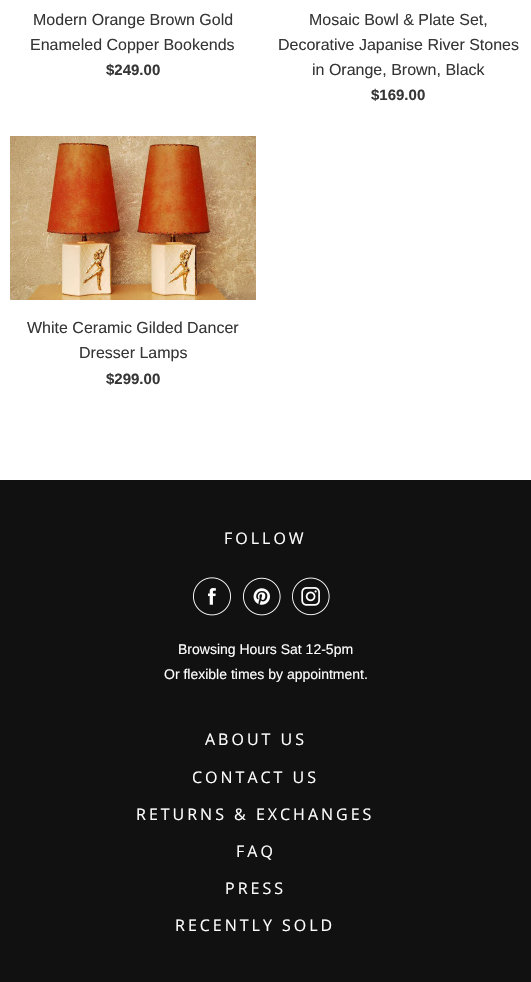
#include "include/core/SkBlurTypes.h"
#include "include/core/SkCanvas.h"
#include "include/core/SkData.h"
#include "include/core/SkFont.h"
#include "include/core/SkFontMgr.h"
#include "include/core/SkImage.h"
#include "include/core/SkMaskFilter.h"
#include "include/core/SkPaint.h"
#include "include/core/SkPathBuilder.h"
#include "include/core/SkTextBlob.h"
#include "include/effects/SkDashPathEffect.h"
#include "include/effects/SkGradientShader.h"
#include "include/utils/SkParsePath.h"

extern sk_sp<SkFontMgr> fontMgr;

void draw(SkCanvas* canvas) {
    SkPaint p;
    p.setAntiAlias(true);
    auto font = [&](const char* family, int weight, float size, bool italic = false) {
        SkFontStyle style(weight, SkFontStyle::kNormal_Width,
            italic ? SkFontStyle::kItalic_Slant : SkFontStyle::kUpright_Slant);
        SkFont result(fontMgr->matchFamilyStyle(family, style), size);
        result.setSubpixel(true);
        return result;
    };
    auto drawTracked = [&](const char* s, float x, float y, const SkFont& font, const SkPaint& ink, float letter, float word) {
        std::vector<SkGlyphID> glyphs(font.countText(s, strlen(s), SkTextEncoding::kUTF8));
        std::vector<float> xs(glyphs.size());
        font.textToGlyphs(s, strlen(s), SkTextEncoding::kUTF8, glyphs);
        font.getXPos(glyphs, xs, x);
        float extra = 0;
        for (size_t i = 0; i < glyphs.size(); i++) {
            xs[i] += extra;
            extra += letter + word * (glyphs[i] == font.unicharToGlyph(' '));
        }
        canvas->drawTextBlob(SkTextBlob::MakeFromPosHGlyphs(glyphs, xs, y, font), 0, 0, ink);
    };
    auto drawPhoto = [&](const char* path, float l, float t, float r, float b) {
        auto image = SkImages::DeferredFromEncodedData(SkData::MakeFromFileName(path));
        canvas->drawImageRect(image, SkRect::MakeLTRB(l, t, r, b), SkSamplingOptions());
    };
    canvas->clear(0xFFFFFFFF);
    auto font1 = font("Liberation Sans", 400, 16);
    p.setColor(0xFF363636);
    canvas->drawString("Modern Orange Brown Gold", 33, 25, font1, p);
    canvas->drawString("Enameled Copper Bookends", 30, 50, font1, p);
    auto font2 = font("Liberation Sans", 700, 15);
    canvas->drawString("$249.00", 106, 75, font2, p);
    {
        const struct { const char* s; float x, y; } items[] = {
            {"Mosaic Bowl & Plate Set,", 309, 25},
            {"Decorative Japanise River Stones", 278, 50},
            {"in Orange, Brown, Black", 312, 75},
        };
        for (auto [s, x, y] : items) {
            canvas->drawString(s, x, y, font1, p);
        }
    }
    canvas->drawString("$169.00", 371, 100, font2, p);
    drawPhoto("media/1.png", 10, 136, 256, 300);
    canvas->drawString("White Ceramic Gilded Dancer", 27, 333, font1, p);
    canvas->drawString("Dresser Lamps", 79, 358, font1, p);
    canvas->drawString("$299.00", 106, 384, font2, p);
    p.setColor(0xFF111111);
    canvas->drawRect(SkRect::MakeLTRB(0, 480, 531, 982), p);
    auto font3 = font("Open Sans", 400, 16);
    p.setColor(0xFFFFFFFF);
    drawTracked("FOLLOW", 224, 544, font3, p, 3, 0);
    drawPhoto("media/2.png", 193, 577, 231, 616);
    drawPhoto("media/3.png", 243, 577, 281, 616);
    drawPhoto("media/4.png", 292, 577, 330, 616);
    auto font4 = font("Liberation Sans", 400, 14);
    canvas->drawString("Browsing Hours Sat 12-5pm", 178, 654, font4, p);
    canvas->drawString("Or flexible times by appointment.", 164, 679, font4, p);
    {
        const struct { const char* s; float x, y; } items[] = {
            {"ABOUT US", 205, 745},
            {"CONTACT US", 192, 783},
            {"RETURNS & EXCHANGES", 136, 820},
            {"FAQ", 236, 857},
            {"PRESS", 225, 894},
            {"RECENTLY SOLD", 175, 931},
        };
        for (auto [s, x, y] : items) {
            drawTracked(s, x, y, font3, p, 3, 0);
        }
    }
}
